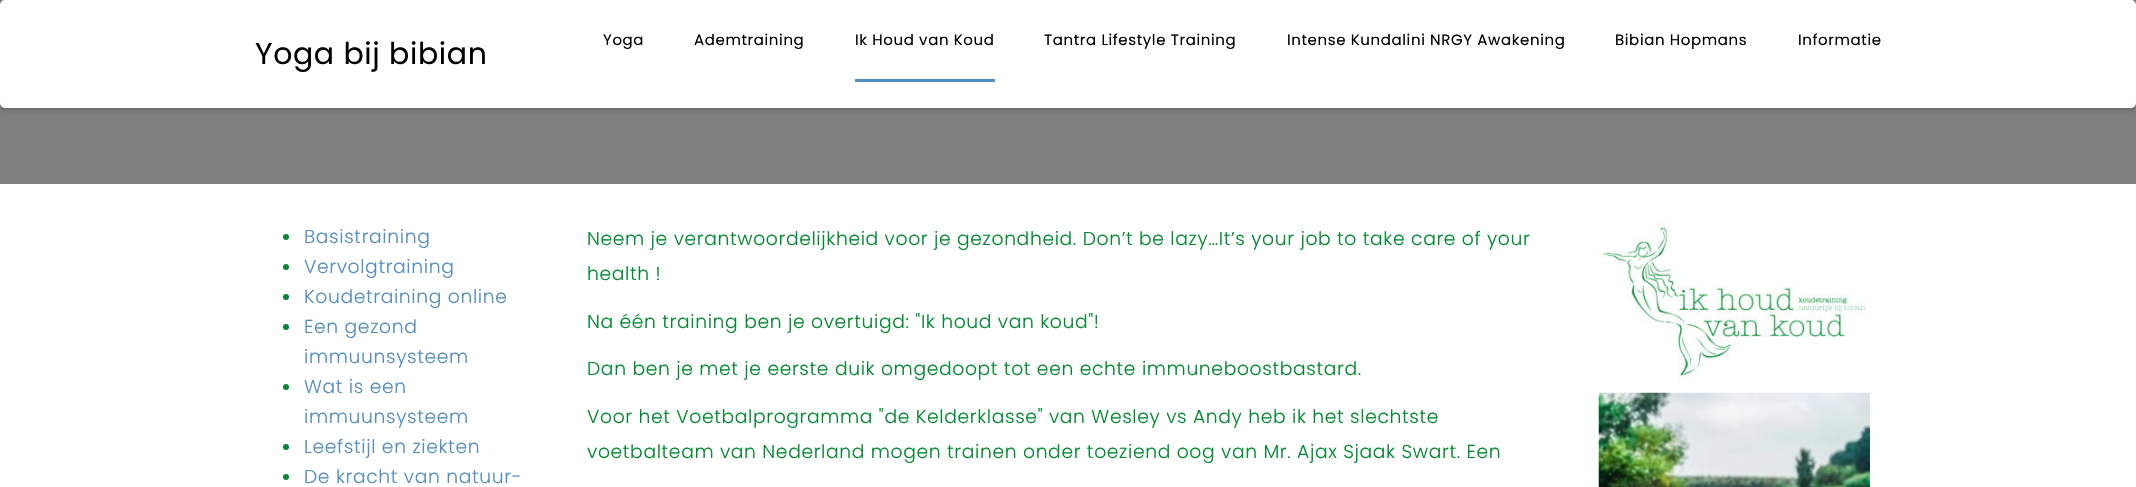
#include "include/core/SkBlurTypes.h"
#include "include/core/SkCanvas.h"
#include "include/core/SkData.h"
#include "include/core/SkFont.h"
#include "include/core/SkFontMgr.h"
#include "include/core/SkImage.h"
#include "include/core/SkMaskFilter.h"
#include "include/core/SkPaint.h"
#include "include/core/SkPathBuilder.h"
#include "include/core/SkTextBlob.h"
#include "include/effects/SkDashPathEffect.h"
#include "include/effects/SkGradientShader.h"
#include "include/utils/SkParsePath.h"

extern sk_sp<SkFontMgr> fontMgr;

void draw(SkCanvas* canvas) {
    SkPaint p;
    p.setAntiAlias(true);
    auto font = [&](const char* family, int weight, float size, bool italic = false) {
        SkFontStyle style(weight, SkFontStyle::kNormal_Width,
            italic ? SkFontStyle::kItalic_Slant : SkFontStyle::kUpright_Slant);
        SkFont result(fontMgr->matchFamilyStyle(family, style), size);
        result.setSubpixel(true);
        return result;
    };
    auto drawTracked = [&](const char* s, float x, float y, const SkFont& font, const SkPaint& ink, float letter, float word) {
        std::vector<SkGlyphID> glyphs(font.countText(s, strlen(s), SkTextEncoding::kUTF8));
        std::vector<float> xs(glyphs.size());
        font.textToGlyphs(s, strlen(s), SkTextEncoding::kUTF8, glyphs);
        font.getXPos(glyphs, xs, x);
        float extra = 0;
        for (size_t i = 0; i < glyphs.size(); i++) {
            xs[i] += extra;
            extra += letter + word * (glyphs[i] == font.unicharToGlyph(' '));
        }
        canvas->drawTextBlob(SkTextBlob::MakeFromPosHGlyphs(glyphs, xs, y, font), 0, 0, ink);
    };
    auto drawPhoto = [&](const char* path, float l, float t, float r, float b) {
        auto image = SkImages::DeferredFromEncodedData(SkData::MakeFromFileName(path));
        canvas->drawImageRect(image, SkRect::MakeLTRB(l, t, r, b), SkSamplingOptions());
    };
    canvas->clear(0xFFFFFFFF);
    p.setColor(0xFF808080);
    canvas->drawRect(SkRect::MakeLTRB(0, 0, 2136, 184), p);
    p.setColor(0x33000000);
    p.setMaskFilter(SkMaskFilter::MakeBlur(kNormal_SkBlurStyle, 2.5f));
    canvas->drawRoundRect(SkRect::MakeLTRB(0, 3, 2136, 110), 5, 5, p);
    p.setMaskFilter(nullptr);
    p.setColor(0xFFFFFFFF);
    canvas->drawRoundRect(SkRect::MakeLTRB(0, 0, 2136, 108), 5, 5, p);
    auto font1 = font("Poppins", 400, 30);
    p.setColor(0xFF000000);
    drawTracked("Yoga bij bibian", 255, 64, font1, p, 0.62f, 0);
    auto font2 = font("Poppins", 400, 15);
    drawTracked("Yoga", 603, 45, font2, p, 0.62f, 0);
    drawTracked("Ademtraining", 694, 45, font2, p, 0.62f, 0);
    p.setColor(0xFF548DBF);
    canvas->drawRect(SkRect::MakeLTRB(855, 79, 995, 82), p);
    p.setColor(0xFF000000);
    {
        const struct { const char* s; float x, y; } items[] = {
            {"Ik Houd van Koud", 855, 45},
            {"Tantra Lifestyle Training", 1044, 45},
            {"Intense Kundalini NRGY Awakening", 1287, 45},
            {"Bibian Hopmans", 1615, 45},
            {"Informatie", 1798, 45},
        };
        for (auto [s, x, y] : items) {
            drawTracked(s, x, y, font2, p, 0.62f, 0);
        }
    }
    p.setColor(0xFF008A2E);
    canvas->drawCircle(286, 237, 3, p);
    auto font3 = font("Poppins", 300, 18.75f);
    p.setColor(0xFF548DBF);
    drawTracked("Basistraining", 304, 243, font3, p, 0.62f, 0);
    p.setColor(0xFF008A2E);
    canvas->drawCircle(286, 267, 3, p);
    p.setColor(0xFF548DBF);
    drawTracked("Vervolgtraining", 304, 273, font3, p, 0.62f, 0);
    p.setColor(0xFF008A2E);
    canvas->drawCircle(286, 297, 3, p);
    p.setColor(0xFF548DBF);
    drawTracked("Koudetraining online", 304, 303, font3, p, 0.62f, 0);
    p.setColor(0xFF008A2E);
    canvas->drawCircle(286, 327, 3, p);
    p.setColor(0xFF548DBF);
    drawTracked("Een gezond", 304, 333, font3, p, 0.62f, 0);
    drawTracked("immuunsysteem", 304, 363, font3, p, 0.62f, 0);
    p.setColor(0xFF008A2E);
    canvas->drawCircle(286, 387, 3, p);
    p.setColor(0xFF548DBF);
    drawTracked("Wat is een", 304, 393, font3, p, 0.62f, 0);
    drawTracked("immuunsysteem", 304, 423, font3, p, 0.62f, 0);
    p.setColor(0xFF008A2E);
    canvas->drawCircle(286, 447, 3, p);
    p.setColor(0xFF548DBF);
    drawTracked("Leefstijl en ziekten", 304, 453, font3, p, 0.62f, 0);
    p.setColor(0xFF008A2E);
    canvas->drawCircle(286, 477, 3, p);
    p.setColor(0xFF548DBF);
    drawTracked("De kracht van natuur-", 304, 483, font3, p, 0.62f, 0);
    p.setColor(0xFF008A2E);
    {
        const struct { const char* s; float x, y; } items[] = {
            {"Neem je verantwoordelijkheid voor je gezondheid. Don’t be lazy…It’s your job to take care of your", 587, 245},
            {"health !", 587, 280},
            {"Na één training ben je overtuigd: \"Ik houd van koud\"!", 587, 328},
            {"Dan ben je met je eerste duik omgedoopt tot een echte immuneboostbastard.", 587, 375},
            {"Voor het Voetbalprogramma \"de Kelderklasse\" van Wesley vs Andy heb ik het slechtste", 587, 423},
            {"voetbalteam van Nederland mogen trainen onder toeziend oog van Mr. Ajax Sjaak Swart. Een", 587, 458},
        };
        for (auto [s, x, y] : items) {
            drawTracked(s, x, y, font3, p, 0.62f, 0);
        }
    }
    drawPhoto("media/1.png", 1599, 221, 1866, 380);
    drawPhoto("media/2.png", 1598, 392, 1870, 487);
}
